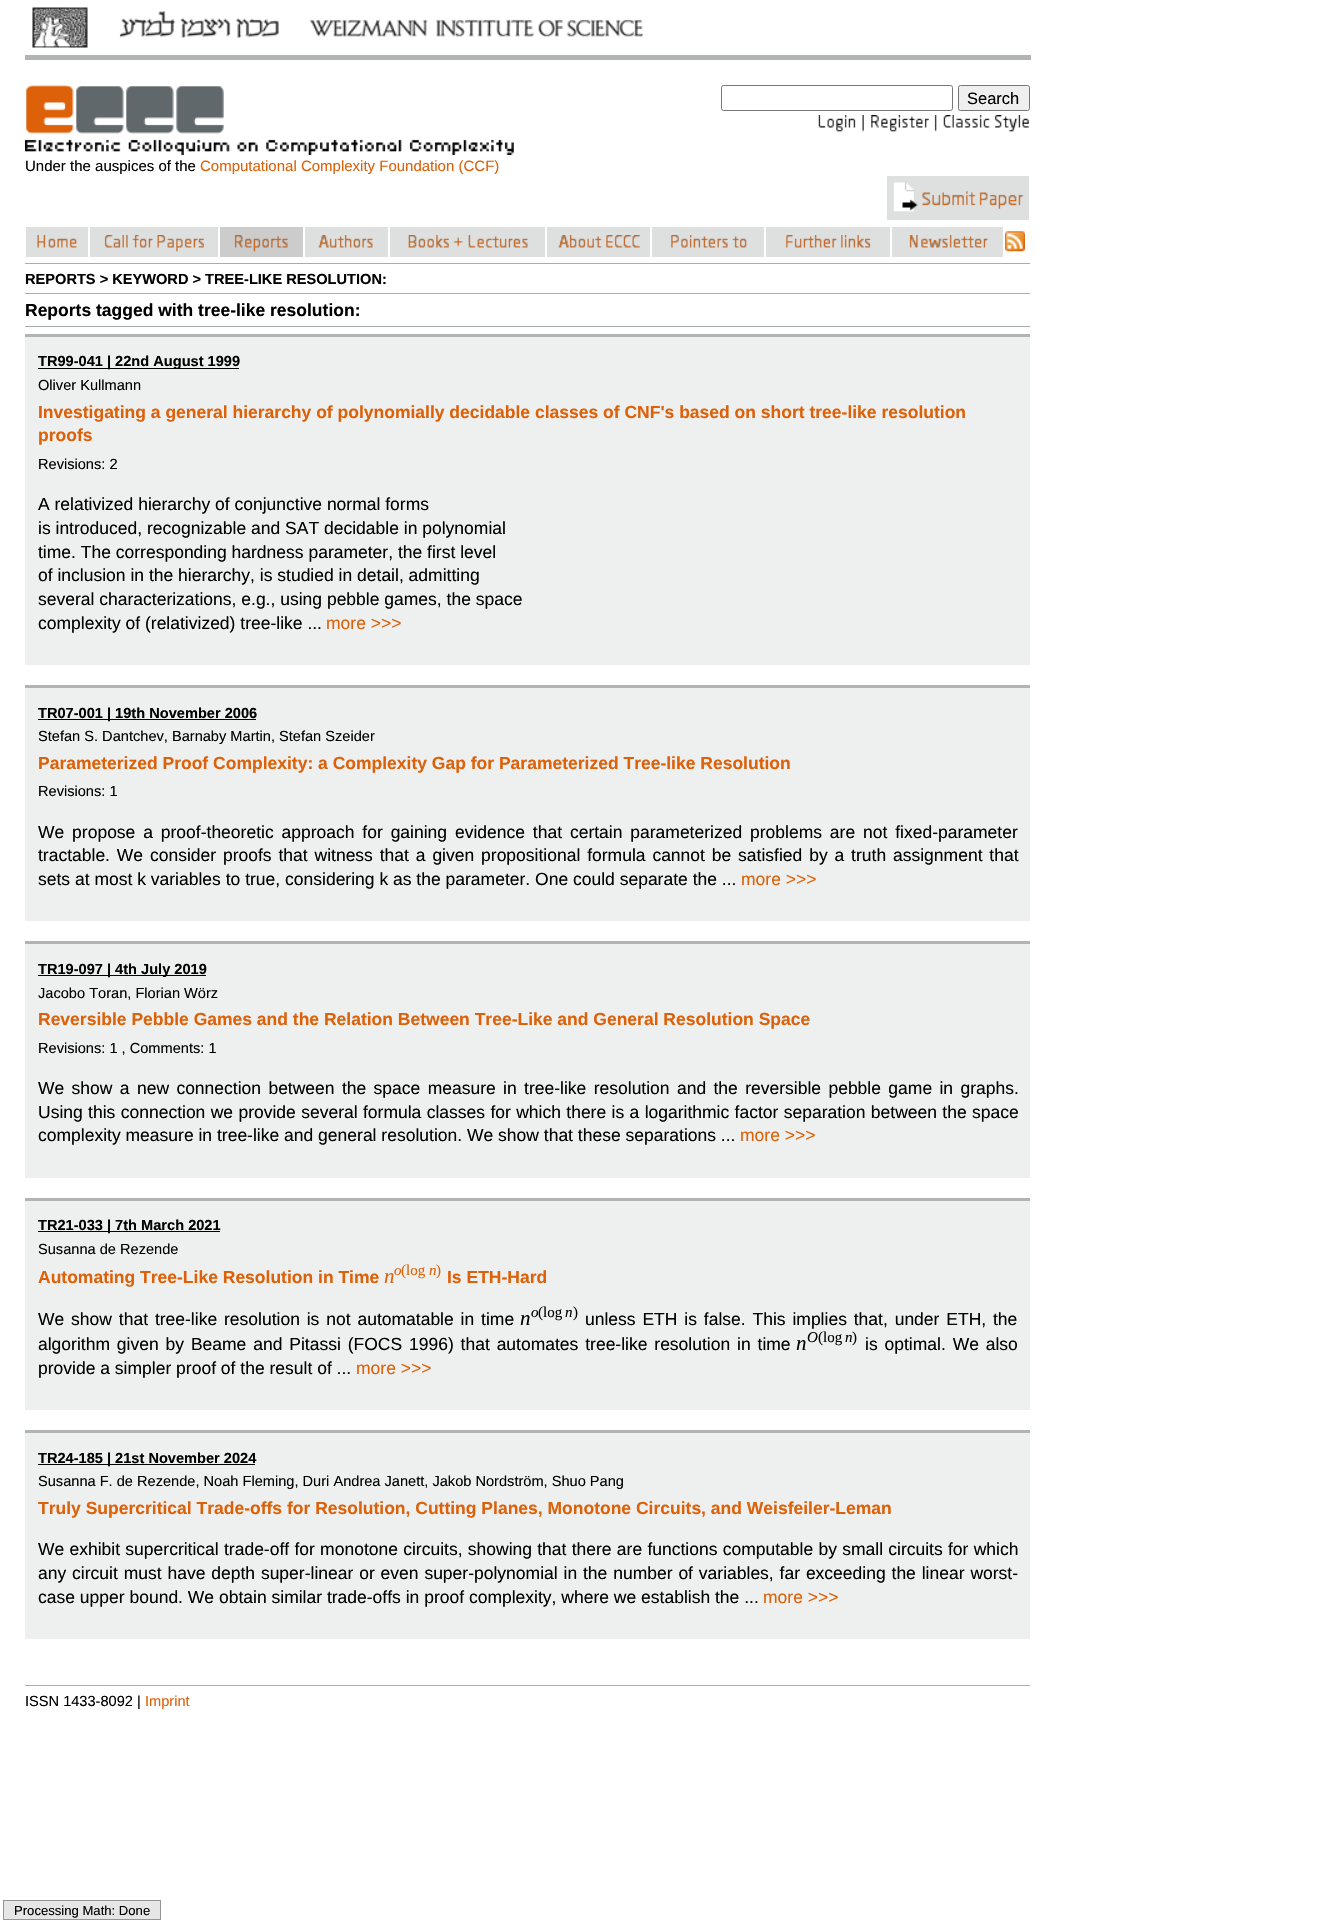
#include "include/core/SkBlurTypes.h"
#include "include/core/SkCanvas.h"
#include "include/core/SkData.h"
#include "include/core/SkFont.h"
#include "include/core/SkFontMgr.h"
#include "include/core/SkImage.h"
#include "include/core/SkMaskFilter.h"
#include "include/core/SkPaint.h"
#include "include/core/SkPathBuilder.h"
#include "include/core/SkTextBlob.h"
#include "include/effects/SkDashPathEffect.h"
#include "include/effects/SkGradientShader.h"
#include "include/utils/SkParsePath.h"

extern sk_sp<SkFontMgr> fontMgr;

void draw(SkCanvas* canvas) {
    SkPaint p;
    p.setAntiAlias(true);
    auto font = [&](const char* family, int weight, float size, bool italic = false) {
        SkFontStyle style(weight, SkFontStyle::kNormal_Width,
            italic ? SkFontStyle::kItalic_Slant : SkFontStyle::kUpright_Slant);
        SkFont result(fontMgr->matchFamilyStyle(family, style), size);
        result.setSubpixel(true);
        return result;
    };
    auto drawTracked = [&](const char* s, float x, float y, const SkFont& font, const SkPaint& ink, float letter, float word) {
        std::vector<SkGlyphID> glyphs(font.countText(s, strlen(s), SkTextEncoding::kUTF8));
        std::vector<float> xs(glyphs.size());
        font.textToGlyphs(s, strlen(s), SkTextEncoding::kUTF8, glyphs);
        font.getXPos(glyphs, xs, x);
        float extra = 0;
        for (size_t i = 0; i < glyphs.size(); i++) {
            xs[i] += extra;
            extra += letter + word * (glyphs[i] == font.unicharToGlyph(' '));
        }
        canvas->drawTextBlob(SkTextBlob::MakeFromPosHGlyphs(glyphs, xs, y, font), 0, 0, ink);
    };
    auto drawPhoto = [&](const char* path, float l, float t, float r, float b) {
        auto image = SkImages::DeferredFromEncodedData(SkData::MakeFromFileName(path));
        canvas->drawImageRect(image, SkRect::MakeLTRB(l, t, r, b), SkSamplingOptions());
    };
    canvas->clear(0xFFFFFFFF);
    p.setColor(0xFFB0B4B5);
    canvas->drawRect(SkRect::MakeLTRB(25, 55, 1031, 60), p);
    drawPhoto("media/1.png", 32, 7, 643, 48);
    p.setStyle(SkPaint::kStroke_Style);
    p.setStrokeWidth(1);
    p.setColor(0xFF767676);
    canvas->drawRoundRect(SkRect::MakeLTRB(721.5f, 85.5f, 952.5f, 110.5f), 2, 2, p);
    p.setStyle(SkPaint::kFill_Style);
    p.setColor(0xFFEFEFEF);
    canvas->drawRoundRect(SkRect::MakeLTRB(958.5f, 85.5f, 1029.5f, 110.5f), 2, 2, p);
    p.setStyle(SkPaint::kStroke_Style);
    p.setColor(0xFF767676);
    canvas->drawRoundRect(SkRect::MakeLTRB(958.5f, 85.5f, 1029.5f, 110.5f), 2, 2, p);
    auto font1 = font("Liberation Sans", 400, 16.5f);
    p.setStyle(SkPaint::kFill_Style);
    p.setColor(0xFF000000);
    canvas->drawString("Search", 967, 104, font1, p);
    drawPhoto("media/2.png", 818, 115, 856, 132);
    drawPhoto("media/3.png", 862, 115, 864, 132);
    drawPhoto("media/4.png", 871, 115, 929, 132);
    drawPhoto("media/5.png", 934, 115, 937, 132);
    drawPhoto("media/6.png", 943, 115, 1029, 132);
    drawPhoto("media/7.png", 26, 85, 224, 134);
    drawPhoto("media/8.png", 25, 139, 514, 155);
    auto font2 = font("Liberation Sans", 400, 15);
    canvas->drawString("Under the auspices of the", 25, 171, font2, p);
    p.setColor(0xFFDC6108);
    canvas->drawString("Computational Complexity Foundation (CCF)", 200, 171, font2, p);
    p.setColor(0xFFDEE0E0);
    canvas->drawRect(SkRect::MakeLTRB(887, 176, 1029, 220), p);
    drawPhoto("media/9.png", 893, 182, 918, 212);
    drawPhoto("media/10.png", 922, 191, 1024, 209);
    canvas->drawRect(SkRect::MakeLTRB(26, 227, 88, 257), p);
    drawPhoto("media/11.png", 37, 235, 77, 248);
    canvas->drawRect(SkRect::MakeLTRB(90, 227, 218, 257), p);
    drawPhoto("media/12.png", 104, 235, 204, 252);
    p.setColor(0xFFCCCCCC);
    canvas->drawRect(SkRect::MakeLTRB(220, 227, 303, 257), p);
    drawPhoto("media/13.png", 234, 235, 288, 252);
    p.setColor(0xFFDEE0E0);
    canvas->drawRect(SkRect::MakeLTRB(305, 227, 388, 257), p);
    drawPhoto("media/14.png", 318, 235, 373, 248);
    canvas->drawRect(SkRect::MakeLTRB(390, 227, 545, 257), p);
    drawPhoto("media/15.png", 408, 235, 528, 248);
    canvas->drawRect(SkRect::MakeLTRB(547, 227, 650, 257), p);
    drawPhoto("media/16.png", 558, 235, 640, 248);
    canvas->drawRect(SkRect::MakeLTRB(652, 227, 764, 257), p);
    drawPhoto("media/17.png", 671, 235, 747, 248);
    canvas->drawRect(SkRect::MakeLTRB(766, 227, 890, 257), p);
    drawPhoto("media/18.png", 786, 235, 871, 248);
    canvas->drawRect(SkRect::MakeLTRB(892, 227, 1003, 257), p);
    drawPhoto("media/19.png", 909, 235, 988, 248);
    drawPhoto("media/20.png", 1005, 231, 1025, 252);
    p.setColor(0xFFA7ACAD);
    canvas->drawRect(SkRect::MakeLTRB(25, 263, 1030, 264), p);
    auto font3 = font("Liberation Sans", 700, 14.6f);
    p.setColor(0xFF000000);
    canvas->drawString("REPORTS > KEYWORD > TREE-LIKE RESOLUTION:", 25, 284, font3, p);
    p.setColor(0xFFA7ACAD);
    canvas->drawRect(SkRect::MakeLTRB(25, 293, 1030, 294), p);
    auto font4 = font("Liberation Sans", 700, 17.5f);
    p.setColor(0xFF000000);
    canvas->drawString("Reports tagged with tree-like resolution:", 25, 316, font4, p);
    {
        const struct { float l, t, r, b; SkColor color; } items[] = {
            {25, 326, 1030, 327, 0xFFA7ACAD},
            {25, 337, 1030, 665, 0xFFEEEFEF},
            {25, 334, 1030, 337, 0xFFB0B4B5},
            {38, 368, 239, 369, 0xFF000000},
        };
        for (auto [l, t, r, b, color] : items) {
            p.setColor(color);
            canvas->drawRect(SkRect::MakeLTRB(l, t, r, b), p);
        }
    }
    canvas->drawString("TR99-041 | 22nd August 1999", 38, 366, font3, p);
    auto font5 = font("Liberation Sans", 400, 14.6f);
    canvas->drawString("Oliver Kullmann", 38, 390, font5, p);
    p.setColor(0xFFDC6108);
    canvas->drawString("Investigating a general hierarchy of polynomially decidable classes of CNF's based on short tree-like resolution", 38, 418, font4, p);
    canvas->drawString("proofs", 38, 441, font4, p);
    p.setColor(0xFF000000);
    canvas->drawString("Revisions: 2", 38, 469, font5, p);
    auto font6 = font("Liberation Sans", 400, 17.5f);
    {
        const struct { const char* s; float x, y; } items[] = {
            {"A relativized hierarchy of conjunctive normal forms", 38, 510},
            {"is introduced, recognizable and SAT decidable in polynomial", 38, 534},
            {"time. The corresponding hardness parameter, the first level", 38, 558},
            {"of inclusion in the hierarchy, is studied in detail, admitting", 38, 581},
            {"several characterizations, e.g., using pebble games, the space", 38, 605},
            {"complexity of (relativized) tree-like ...", 38, 629},
        };
        for (auto [s, x, y] : items) {
            canvas->drawString(s, x, y, font6, p);
        }
    }
    p.setColor(0xFFDC6108);
    canvas->drawString("more >>>", 326, 629, font6, p);
    {
        const struct { float l, t, r, b; SkColor color; } items[] = {
            {25, 688, 1030, 921, 0xFFEEEFEF},
            {25, 685, 1030, 688, 0xFFB0B4B5},
            {38, 719, 256, 720, 0xFF000000},
        };
        for (auto [l, t, r, b, color] : items) {
            p.setColor(color);
            canvas->drawRect(SkRect::MakeLTRB(l, t, r, b), p);
        }
    }
    canvas->drawString("TR07-001 | 19th November 2006", 38, 718, font3, p);
    canvas->drawString("Stefan S. Dantchev, Barnaby Martin, Stefan Szeider", 38, 741, font5, p);
    p.setColor(0xFFDC6108);
    canvas->drawString("Parameterized Proof Complexity: a Complexity Gap for Parameterized Tree-like Resolution", 38, 769, font4, p);
    p.setColor(0xFF000000);
    canvas->drawString("Revisions: 1", 38, 796, font5, p);
    drawTracked("We propose a proof-theoretic approach for gaining evidence that certain parameterized problems are not fixed-parameter", 38, 838, font6, p, 0, 3);
    drawTracked("tractable. We consider proofs that witness that a given propositional formula cannot be satisfied by a truth assignment that", 38, 861, font6, p, 0, 2);
    canvas->drawString("sets at most k variables to true, considering k as the parameter. One could separate the ...", 38, 885, font6, p);
    p.setColor(0xFFDC6108);
    canvas->drawString("more >>>", 741, 885, font6, p);
    {
        const struct { float l, t, r, b; SkColor color; } items[] = {
            {25, 944, 1030, 1178, 0xFFEEEFEF},
            {25, 941, 1030, 944, 0xFFB0B4B5},
            {38, 975, 206, 976, 0xFF000000},
        };
        for (auto [l, t, r, b, color] : items) {
            p.setColor(color);
            canvas->drawRect(SkRect::MakeLTRB(l, t, r, b), p);
        }
    }
    canvas->drawString("TR19-097 | 4th July 2019", 38, 974, font3, p);
    canvas->drawString("Jacobo Toran, Florian Wörz", 38, 998, font5, p);
    p.setColor(0xFFDC6108);
    canvas->drawString("Reversible Pebble Games and the Relation Between Tree-Like and General Resolution Space", 38, 1025, font4, p);
    p.setColor(0xFF000000);
    canvas->drawString("Revisions: 1 , Comments: 1", 38, 1053, font5, p);
    drawTracked("We show a new connection between the space measure in tree-like resolution and the reversible pebble game in graphs.", 38, 1094, font6, p, 0, 2.5f);
    drawTracked("Using this connection we provide several formula classes for which there is a logarithmic factor separation between the space", 38, 1118, font6, p, 0, 0.5f);
    canvas->drawString("complexity measure in tree-like and general resolution. We show that these separations ...", 38, 1141, font6, p);
    p.setColor(0xFFDC6108);
    canvas->drawString("more >>>", 740, 1141, font6, p);
    {
        const struct { float l, t, r, b; SkColor color; } items[] = {
            {25, 1201, 1030, 1410, 0xFFEEEFEF},
            {25, 1198, 1030, 1201, 0xFFB0B4B5},
            {38, 1231, 220, 1232, 0xFF000000},
        };
        for (auto [l, t, r, b, color] : items) {
            p.setColor(color);
            canvas->drawRect(SkRect::MakeLTRB(l, t, r, b), p);
        }
    }
    canvas->drawString("TR21-033 | 7th March 2021", 38, 1230, font3, p);
    canvas->drawString("Susanna de Rezende", 38, 1254, font5, p);
    p.setColor(0xFFDC6108);
    canvas->drawString("Automating Tree-Like Resolution in Time", 38, 1283, font4, p);
    auto font7 = font("Liberation Serif", 400, 21, true);
    canvas->drawString("n", 384, 1283, font7, p);
    auto font8 = font("Liberation Serif", 400, 15, true);
    canvas->drawString("o", 394, 1275, font8, p);
    auto font9 = font("Liberation Serif", 400, 15);
    canvas->drawString("(log", 401, 1275, font9, p);
    canvas->drawString("n", 429, 1275, font8, p);
    canvas->drawString(")", 436, 1275, font9, p);
    canvas->drawString("Is ETH-Hard", 447, 1283, font4, p);
    p.setColor(0xFF000000);
    drawTracked("We show that tree-like resolution is not automatable in time", 38, 1325, font6, p, 0, 2);
    canvas->drawString("n", 520, 1325, font7, p);
    canvas->drawString("o", 531, 1317, font8, p);
    canvas->drawString("(log", 538, 1317, font9, p);
    canvas->drawString("n", 565, 1317, font8, p);
    canvas->drawString(")", 573, 1317, font9, p);
    drawTracked("unless ETH is false. This implies that, under ETH, the", 585, 1325, font6, p, 0, 2);
    drawTracked("algorithm given by Beame and Pitassi (FOCS 1996) that automates tree-like resolution in time", 38, 1350, font6, p, 0, 2);
    canvas->drawString("n", 796, 1350, font7, p);
    canvas->drawString("O", 807, 1342, font8, p);
    canvas->drawString("(log", 818, 1342, font9, p);
    canvas->drawString("n", 845, 1342, font8, p);
    canvas->drawString(")", 852, 1342, font9, p);
    drawTracked("is optimal. We also", 865, 1350, font6, p, 0, 2);
    canvas->drawString("provide a simpler proof of the result of ...", 38, 1374, font6, p);
    p.setColor(0xFFDC6108);
    canvas->drawString("more >>>", 356, 1374, font6, p);
    {
        const struct { float l, t, r, b; SkColor color; } items[] = {
            {25, 1433, 1030, 1639, 0xFFEEEFEF},
            {25, 1430, 1030, 1433, 0xFFB0B4B5},
            {38, 1464, 255, 1465, 0xFF000000},
        };
        for (auto [l, t, r, b, color] : items) {
            p.setColor(color);
            canvas->drawRect(SkRect::MakeLTRB(l, t, r, b), p);
        }
    }
    canvas->drawString("TR24-185 | 21st November 2024", 38, 1463, font3, p);
    canvas->drawString("Susanna F. de Rezende, Noah Fleming, Duri Andrea Janett, Jakob Nordström, Shuo Pang", 38, 1486, font5, p);
    p.setColor(0xFFDC6108);
    canvas->drawString("Truly Supercritical Trade-offs for Resolution, Cutting Planes, Monotone Circuits, and Weisfeiler-Leman", 38, 1514, font4, p);
    p.setColor(0xFF000000);
    drawTracked("We exhibit supercritical trade-off for monotone circuits, showing that there are functions computable by small circuits for which", 38, 1555, font6, p, 0, 0.4f);
    drawTracked("any circuit must have depth super-linear or even super-polynomial in the number of variables, far exceeding the linear worst-", 38, 1579, font6, p, 0, 1);
    canvas->drawString("case upper bound. We obtain similar trade-offs in proof complexity, where we establish the ...", 38, 1603, font6, p);
    p.setColor(0xFFDC6108);
    canvas->drawString("more >>>", 763, 1603, font6, p);
    p.setColor(0xFFA7ACAD);
    canvas->drawRect(SkRect::MakeLTRB(25, 1685, 1030, 1686), p);
    p.setColor(0xFF000000);
    canvas->drawString("ISSN 1433-8092 |", 25, 1706, font5, p);
    p.setColor(0xFFDC6108);
    canvas->drawString("Imprint", 145, 1706, font5, p);
    p.setColor(0xFFE6E6E6);
    canvas->drawRect(SkRect::MakeLTRB(3.5f, 1900.5f, 160.5f, 1919.5f), p);
    p.setStyle(SkPaint::kStroke_Style);
    p.setColor(0xFF959595);
    canvas->drawRect(SkRect::MakeLTRB(3.5f, 1900.5f, 160.5f, 1919.5f), p);
    auto font10 = font("Liberation Sans", 400, 13.1f);
    p.setStyle(SkPaint::kFill_Style);
    p.setColor(0xFF000000);
    canvas->drawString("Processing Math: Done", 14, 1915, font10, p);
}
